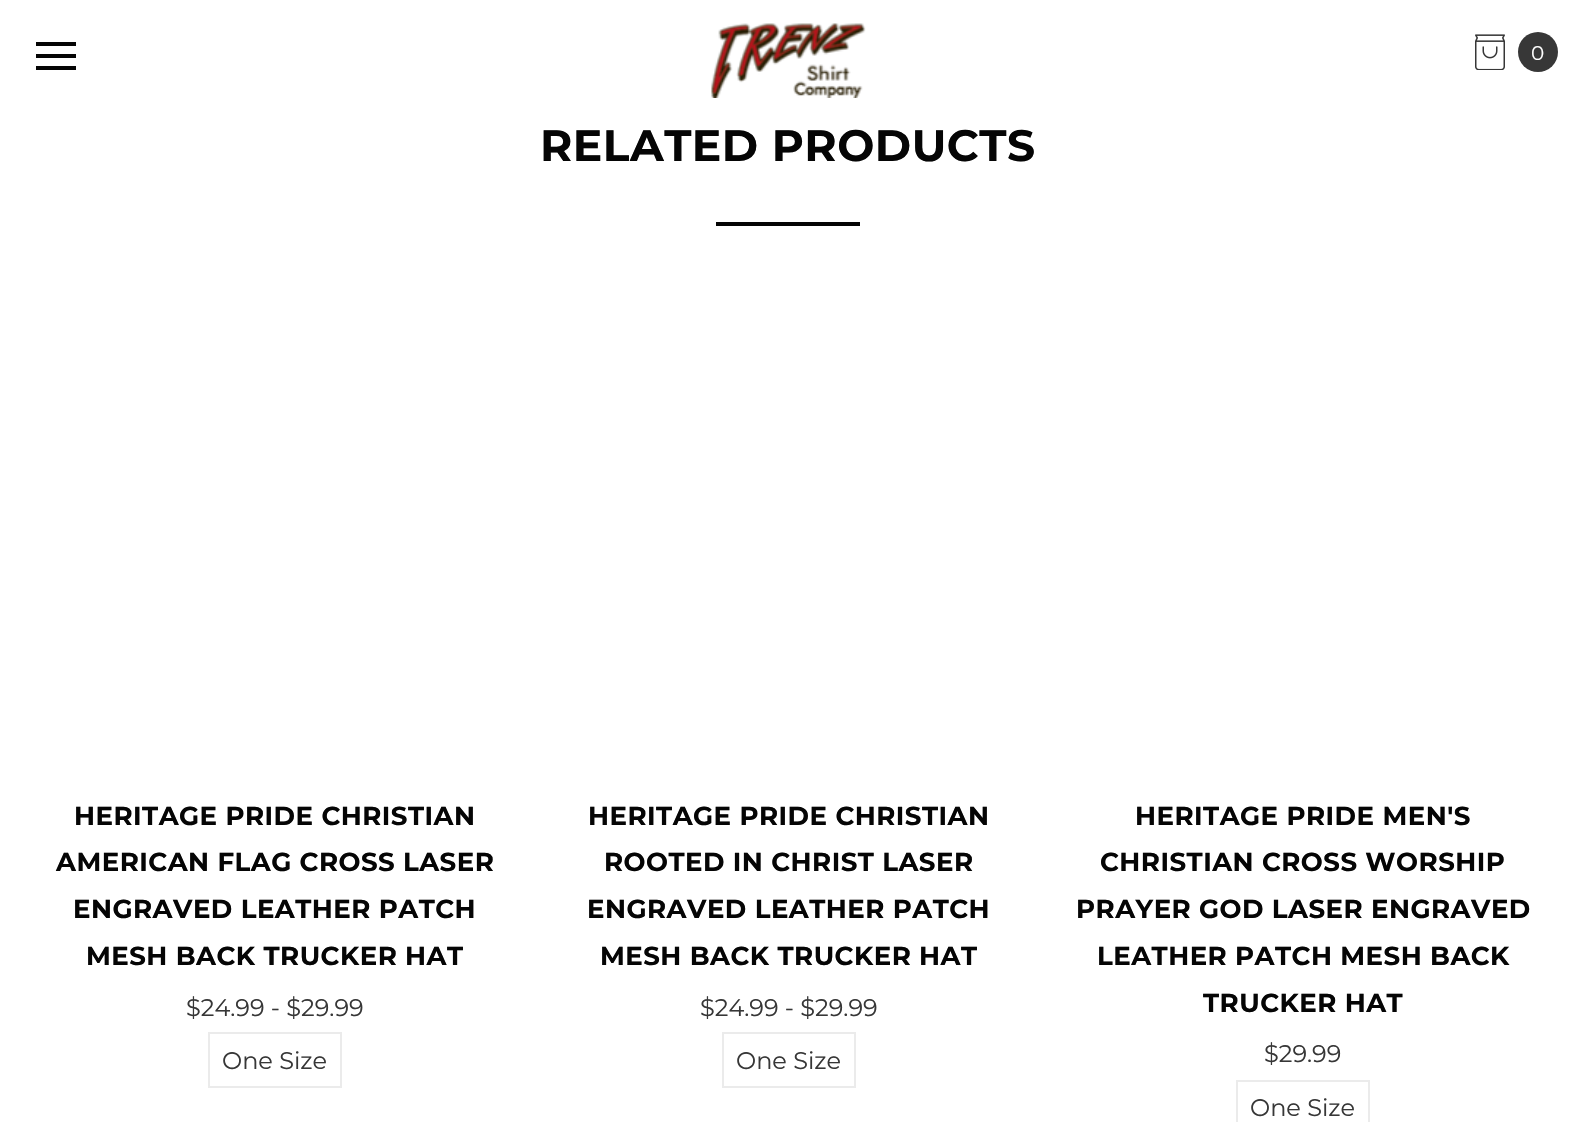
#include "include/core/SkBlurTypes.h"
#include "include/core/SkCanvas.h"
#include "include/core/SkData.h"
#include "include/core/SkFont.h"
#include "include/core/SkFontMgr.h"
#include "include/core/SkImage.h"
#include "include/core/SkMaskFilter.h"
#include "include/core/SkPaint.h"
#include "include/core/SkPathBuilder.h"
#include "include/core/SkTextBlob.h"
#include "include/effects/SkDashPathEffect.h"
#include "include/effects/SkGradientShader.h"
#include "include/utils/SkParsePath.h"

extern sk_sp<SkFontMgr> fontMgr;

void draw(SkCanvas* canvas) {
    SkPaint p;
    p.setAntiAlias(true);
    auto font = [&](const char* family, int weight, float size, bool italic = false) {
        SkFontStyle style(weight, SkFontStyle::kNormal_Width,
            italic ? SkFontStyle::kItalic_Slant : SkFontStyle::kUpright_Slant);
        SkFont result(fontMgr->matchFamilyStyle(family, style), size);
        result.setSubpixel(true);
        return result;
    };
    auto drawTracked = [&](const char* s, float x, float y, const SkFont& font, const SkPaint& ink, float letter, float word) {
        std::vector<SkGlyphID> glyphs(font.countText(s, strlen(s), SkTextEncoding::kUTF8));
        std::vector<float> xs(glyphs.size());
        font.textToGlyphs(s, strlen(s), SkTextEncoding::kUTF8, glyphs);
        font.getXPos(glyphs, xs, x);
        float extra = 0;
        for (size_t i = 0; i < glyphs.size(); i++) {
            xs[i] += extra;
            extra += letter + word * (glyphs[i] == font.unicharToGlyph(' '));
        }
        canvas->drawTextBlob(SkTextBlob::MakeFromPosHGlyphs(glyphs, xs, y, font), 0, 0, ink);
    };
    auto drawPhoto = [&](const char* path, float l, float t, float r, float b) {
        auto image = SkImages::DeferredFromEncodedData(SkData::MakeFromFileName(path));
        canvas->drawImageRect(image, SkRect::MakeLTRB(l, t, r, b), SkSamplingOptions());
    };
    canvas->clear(0xFFFFFFFF);
    {
        const struct { float l, t, r, b; SkColor color; } items[] = {
            {36, 54, 76, 58, 0xFF050505},
            {36, 42, 76, 46, 0xFF050505},
            {36, 66, 76, 70, 0xFF050505},
        };
        for (auto [l, t, r, b, color] : items) {
            p.setColor(color);
            canvas->drawRect(SkRect::MakeLTRB(l, t, r, b), p);
        }
    }
    drawPhoto("media/1.png", 711, 23, 866, 98);
    drawPhoto("media/2.png", 1475, 34, 1505, 70);
    p.setColor(0xFF373737);
    canvas->drawCircle(1538, 52, 20, p);
    auto font1 = font("Montserrat", 400, 20);
    p.setColor(0xFFFFFFFF);
    canvas->drawString("0", 1531, 60, font1, p);
    auto font2 = font("Montserrat", 700, 44);
    p.setColor(0xFF050505);
    drawTracked("RELATED PRODUCTS", 540, 161, font2, p, 0.5f, 0);
    canvas->drawRect(SkRect::MakeLTRB(716, 222, 860, 226), p);
    auto font3 = font("Montserrat", 700, 26);
    {
        const struct { const char* s; float x, y; } items[] = {
            {"HERITAGE PRIDE CHRISTIAN", 74, 825},
            {"AMERICAN FLAG CROSS LASER", 56, 871},
            {"ENGRAVED LEATHER PATCH", 73, 918},
            {"MESH BACK TRUCKER HAT", 86, 965},
        };
        for (auto [s, x, y] : items) {
            drawTracked(s, x, y, font3, p, 0.5f, 0);
        }
    }
    auto font4 = font("Montserrat", 400, 24);
    p.setColor(0xFF373737);
    canvas->drawString("$24.99 - $29.99", 186, 1016, font4, p);
    p.setStyle(SkPaint::kStroke_Style);
    p.setStrokeWidth(2);
    p.setColor(0xFFEBEBEB);
    canvas->drawRect(SkRect::MakeLTRB(209, 1033, 341, 1087), p);
    p.setStyle(SkPaint::kFill_Style);
    p.setColor(0xFF373737);
    canvas->drawString("One Size", 222, 1069, font4, p);
    p.setColor(0xFF050505);
    {
        const struct { const char* s; float x, y; } items[] = {
            {"HERITAGE PRIDE CHRISTIAN", 588, 825},
            {"ROOTED IN CHRIST LASER", 604, 871},
            {"ENGRAVED LEATHER PATCH", 587, 918},
            {"MESH BACK TRUCKER HAT", 600, 965},
        };
        for (auto [s, x, y] : items) {
            drawTracked(s, x, y, font3, p, 0.5f, 0);
        }
    }
    p.setColor(0xFF373737);
    canvas->drawString("$24.99 - $29.99", 700, 1016, font4, p);
    p.setStyle(SkPaint::kStroke_Style);
    p.setColor(0xFFEBEBEB);
    canvas->drawRect(SkRect::MakeLTRB(723, 1033, 855, 1087), p);
    p.setStyle(SkPaint::kFill_Style);
    p.setColor(0xFF373737);
    canvas->drawString("One Size", 736, 1069, font4, p);
    p.setColor(0xFF050505);
    {
        const struct { const char* s; float x, y; } items[] = {
            {"HERITAGE PRIDE MEN'S", 1135, 825},
            {"CHRISTIAN CROSS WORSHIP", 1100, 871},
            {"PRAYER GOD LASER ENGRAVED", 1076, 918},
            {"LEATHER PATCH MESH BACK", 1097, 965},
            {"TRUCKER HAT", 1203, 1012},
        };
        for (auto [s, x, y] : items) {
            drawTracked(s, x, y, font3, p, 0.5f, 0);
        }
    }
    p.setColor(0xFF373737);
    canvas->drawString("$29.99", 1264, 1062, font4, p);
    p.setStyle(SkPaint::kStroke_Style);
    p.setColor(0xFFEBEBEB);
    canvas->drawRect(SkRect::MakeLTRB(1237, 1081, 1369, 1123), p);
    p.setStyle(SkPaint::kFill_Style);
    p.setColor(0xFF373737);
    canvas->drawString("One Size", 1250, 1116, font4, p);
}
